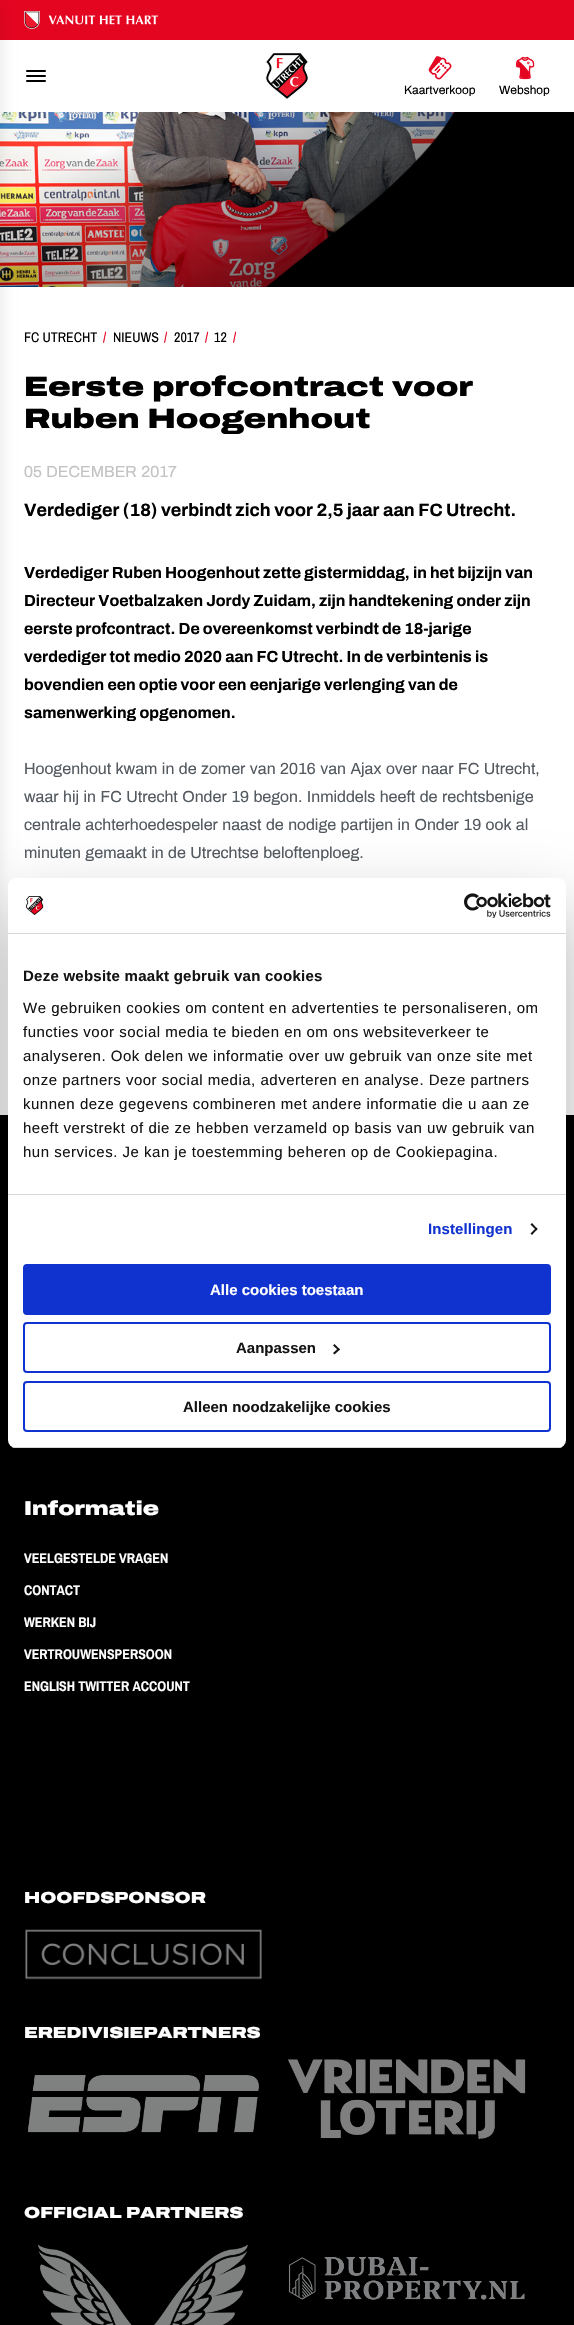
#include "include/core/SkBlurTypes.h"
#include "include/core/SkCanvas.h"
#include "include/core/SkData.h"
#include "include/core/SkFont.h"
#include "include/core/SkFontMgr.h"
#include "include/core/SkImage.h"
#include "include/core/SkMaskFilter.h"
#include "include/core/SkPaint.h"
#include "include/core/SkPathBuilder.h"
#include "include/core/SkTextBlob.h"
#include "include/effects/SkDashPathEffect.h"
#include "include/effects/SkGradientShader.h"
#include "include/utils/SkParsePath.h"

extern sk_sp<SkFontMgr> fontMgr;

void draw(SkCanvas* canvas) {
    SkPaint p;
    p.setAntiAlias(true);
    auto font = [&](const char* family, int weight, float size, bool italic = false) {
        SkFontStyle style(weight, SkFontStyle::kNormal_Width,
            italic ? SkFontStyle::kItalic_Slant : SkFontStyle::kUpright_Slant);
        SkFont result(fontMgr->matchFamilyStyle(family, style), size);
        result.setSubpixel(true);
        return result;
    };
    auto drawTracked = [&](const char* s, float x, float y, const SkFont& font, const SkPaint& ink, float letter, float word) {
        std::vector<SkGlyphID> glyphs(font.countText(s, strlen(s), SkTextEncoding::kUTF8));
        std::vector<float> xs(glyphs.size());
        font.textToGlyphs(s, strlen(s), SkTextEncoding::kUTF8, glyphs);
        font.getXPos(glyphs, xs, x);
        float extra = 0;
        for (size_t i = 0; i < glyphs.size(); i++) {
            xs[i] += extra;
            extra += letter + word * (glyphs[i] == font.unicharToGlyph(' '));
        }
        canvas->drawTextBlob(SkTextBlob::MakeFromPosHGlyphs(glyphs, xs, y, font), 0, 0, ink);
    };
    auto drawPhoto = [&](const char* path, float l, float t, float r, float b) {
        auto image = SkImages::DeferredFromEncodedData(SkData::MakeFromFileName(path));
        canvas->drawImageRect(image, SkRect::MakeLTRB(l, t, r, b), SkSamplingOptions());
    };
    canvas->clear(0xFFFFFFFF);
    p.setColor(0xFFE40521);
    canvas->drawRect(SkRect::MakeLTRB(0, 0, 574, 40), p);
    drawPhoto("media/1.png", 24, 11, 158, 29);
    drawPhoto("media/5.png", 0, 112, 455, 287);
    p.setColor(0xFF000000);
    canvas->drawRect(SkRect::MakeLTRB(0, 1115, 574, 2325), p);
    p.setColor(0x1A000000);
    p.setMaskFilter(SkMaskFilter::MakeBlur(kNormal_SkBlurStyle, 8));
    canvas->drawRect(SkRect::MakeLTRB(-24, 8, 0, 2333), p);
    p.setMaskFilter(nullptr);
    p.setColor(0xFF000000);
    canvas->drawRoundRect(SkRect::MakeLTRB(26, 75, 46, 77), 1, 1, p);
    canvas->drawRoundRect(SkRect::MakeLTRB(26, 70, 46, 72), 1, 1, p);
    canvas->drawRoundRect(SkRect::MakeLTRB(26, 80, 46, 82), 1, 1, p);
    drawPhoto("media/2.png", 265, 53, 309, 100);
    drawPhoto("media/3.png", 428, 56, 452, 80);
    auto font1 = font("Archivo", 400, 12);
    canvas->drawString("Kaartverkoop", 404, 94, font1, p);
    drawPhoto("media/4.png", 515, 56, 535, 80);
    canvas->drawString("Webshop", 499, 94, font1, p);
    drawPhoto("media/6.png", 266, 112, 574, 287);
    auto font2 = font("Archivo Narrow", 400, 14);
    canvas->drawString("FC UTRECHT", 24, 342, font2, p);
    p.setColor(0xFFE40521);
    canvas->drawString("/", 103, 342, font2, p);
    p.setColor(0xFF000000);
    canvas->drawString("NIEUWS", 113, 342, font2, p);
    p.setColor(0xFFE40521);
    canvas->drawString("/", 164, 342, font2, p);
    p.setColor(0xFF000000);
    canvas->drawString("2017", 174, 342, font2, p);
    p.setColor(0xFFE40521);
    canvas->drawString("/", 205, 342, font2, p);
    p.setColor(0xFF000000);
    canvas->drawString("12", 214, 342, font2, p);
    p.setColor(0xFFE40521);
    canvas->drawString("/", 233, 342, font2, p);
    auto font3 = font("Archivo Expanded", 900, 28);
    p.setColor(0xFF000000);
    canvas->drawString("Eerste profcontract voor", 24, 396, font3, p);
    canvas->drawString("Ruben Hoogenhout", 24, 428, font3, p);
    auto font4 = font("Archivo", 400, 16);
    p.setColor(0xFFC3C3C3);
    canvas->drawString("05 DECEMBER 2017", 24, 477, font4, p);
    auto font5 = font("Archivo", 700, 18);
    p.setColor(0xFF000000);
    canvas->drawString("Verdediger (18) verbindt zich voor 2,5 jaar aan FC Utrecht.", 24, 516, font5, p);
    auto font6 = font("Archivo", 700, 16);
    {
        const struct { const char* s; float x, y; } items[] = {
            {"Verdediger Ruben Hoogenhout zette gistermiddag, in het bijzijn van", 24, 578},
            {"Directeur Voetbalzaken Jordy Zuidam, zijn handtekening onder zijn", 24, 606},
            {"eerste profcontract. De overeenkomst verbindt de 18-jarige", 24, 634},
            {"verdediger tot medio 2020 aan FC Utrecht. In de verbintenis is", 24, 662},
            {"bovendien een optie voor een eenjarige verlenging van de", 24, 690},
            {"samenwerking opgenomen.", 24, 718},
        };
        for (auto [s, x, y] : items) {
            canvas->drawString(s, x, y, font6, p);
        }
    }
    p.setColor(0xFF53595F);
    {
        const struct { const char* s; float x, y; } items[] = {
            {"Hoogenhout kwam in de zomer van 2016 van Ajax over naar FC Utrecht,", 24, 774},
            {"waar hij in FC Utrecht Onder 19 begon. Inmiddels heeft de rechtsbenige", 24, 802},
            {"centrale achterhoedespeler naast de nodige partijen in Onder 19 ook al", 24, 830},
            {"minuten gemaakt in de Utrechtse beloftenploeg.", 24, 858},
        };
        for (auto [s, x, y] : items) {
            canvas->drawString(s, x, y, font4, p);
        }
    }
    p.setColor(0x4D000000);
    p.setMaskFilter(SkMaskFilter::MakeBlur(kNormal_SkBlurStyle, 34));
    canvas->drawRoundRect(SkRect::MakeLTRB(8, 910, 566, 1480), 8, 8, p);
    p.setMaskFilter(nullptr);
    p.setColor(0xFFFFFFFF);
    canvas->drawRoundRect(SkRect::MakeLTRB(8, 878, 566, 1448), 8, 8, p);
    p.setColor(0xFFD6D6D6);
    canvas->drawRect(SkRect::MakeLTRB(8, 933, 566, 934), p);
    drawPhoto("media/7.png", 25, 896, 44, 915);
    drawPhoto("media/8.png", 464, 893, 551, 918);
    canvas->drawRect(SkRect::MakeLTRB(8, 1194, 566, 1195), p);
    auto font7 = font("Liberation Sans", 700, 15);
    p.setColor(0xFF141414);
    drawTracked("Deze website maakt gebruik van cookies", 23, 981, font7, p, 0.25f, 0);
    auto font8 = font("Liberation Sans", 400, 15);
    {
        const struct { const char* s; float x, y; } items[] = {
            {"We gebruiken cookies om content en advertenties te personaliseren, om", 23, 1013},
            {"functies voor social media te bieden en om ons websiteverkeer te", 23, 1037},
            {"analyseren. Ook delen we informatie over uw gebruik van onze site met", 23, 1061},
            {"onze partners voor social media, adverteren en analyse. Deze partners", 23, 1085},
            {"kunnen deze gegevens combineren met andere informatie die u aan ze", 23, 1109},
            {"heeft verstrekt of die ze hebben verzameld op basis van uw gebruik van", 23, 1133},
            {"hun services. Je kan je toestemming beheren op de Cookiepagina.", 23, 1157},
        };
        for (auto [s, x, y] : items) {
            drawTracked(s, x, y, font8, p, 0.5f, 0);
        }
    }
    p.setColor(0xFF1032CF);
    drawTracked("Instellingen", 428, 1234, font7, p, 0.1f, 0);
    p.setColor(0xFF141414);
    canvas->drawPath(SkPathBuilder().moveTo(532, 1223).lineTo(537.5f, 1229).lineTo(536.5f, 1230.5f).lineTo(530.5f, 1224.5f).close().detach(), p);
    canvas->drawPath(SkPathBuilder().moveTo(536.5f, 1227.5f).lineTo(537.5f, 1229).lineTo(532, 1235).lineTo(530.5f, 1233.5f).close().detach(), p);
    canvas->save();
    canvas->clipPath(SkPathBuilder().moveTo(16, 878).lineTo(558, 878).cubicTo(562.5f, 878, 566, 881.5f, 566, 886).lineTo(566, 1440).cubicTo(566, 1444.5f, 562.5f, 1448, 558, 1448).lineTo(16, 1448).cubicTo(11.5f, 1448, 8, 1444.5f, 8, 1440).lineTo(8, 886).cubicTo(8, 881.5f, 11.5f, 878, 16, 878).close().detach(), true);
    p.setColor(0xFFD6D6D6);
    canvas->drawRect(SkRect::MakeLTRB(8, 1447, 566, 1448), p);
    canvas->restore();
    p.setColor(0xFF1032CF);
    canvas->drawRoundRect(SkRect::MakeLTRB(24, 1265, 550, 1314), 3, 3, p);
    p.setStyle(SkPaint::kStroke_Style);
    p.setStrokeWidth(2);
    canvas->drawRoundRect(SkRect::MakeLTRB(24, 1265, 550, 1314), 3, 3, p);
    p.setStyle(SkPaint::kFill_Style);
    p.setColor(0xFFFFFFFF);
    canvas->drawString("Alle cookies toestaan", 210, 1295, font7, p);
    p.setStyle(SkPaint::kStroke_Style);
    p.setColor(0xFF1032CF);
    canvas->drawRoundRect(SkRect::MakeLTRB(24, 1323, 550, 1372), 3, 3, p);
    p.setStyle(SkPaint::kFill_Style);
    p.setColor(0xFF141414);
    canvas->drawString("Aanpassen", 236, 1353, font7, p);
    canvas->drawPath(SkPathBuilder().moveTo(334.5f, 1344).lineTo(340, 1349.5f).lineTo(338.5f, 1350.5f).lineTo(333, 1345.5f).close().detach(), p);
    canvas->drawPath(SkPathBuilder().moveTo(338.5f, 1348).lineTo(340, 1349.5f).lineTo(334.5f, 1354.5f).lineTo(333, 1353).close().detach(), p);
    p.setStyle(SkPaint::kStroke_Style);
    p.setColor(0xFF1032CF);
    canvas->drawRoundRect(SkRect::MakeLTRB(24, 1382, 550, 1431), 3, 3, p);
    p.setStyle(SkPaint::kFill_Style);
    p.setColor(0xFF141414);
    canvas->drawString("Alleen noodzakelijke cookies", 183, 1412, font7, p);
    auto font9 = font("Archivo Expanded", 900, 20);
    p.setColor(0xFFFFFFFF);
    canvas->drawString("Informatie", 24, 1515, font9, p);
    auto font10 = font("Archivo Narrow", 700, 14);
    {
        const struct { const char* s; float x, y; } items[] = {
            {"VEELGESTELDE VRAGEN", 24, 1563},
            {"CONTACT", 24, 1595},
            {"WERKEN BIJ", 24, 1627},
            {"VERTROUWENSPERSOON", 24, 1659},
            {"ENGLISH TWITTER ACCOUNT", 24, 1691},
        };
        for (auto [s, x, y] : items) {
            canvas->drawString(s, x, y, font10, p);
        }
    }
    auto font11 = font("Archivo Expanded", 900, 16);
    canvas->drawString("HOOFDSPONSOR", 24, 1903, font11, p);
    drawPhoto("media/9.png", 25, 1929, 262, 1980);
    canvas->drawString("EREDIVISIEPARTNERS", 24, 2038, font11, p);
    drawPhoto("media/10.png", 28, 2075, 259, 2133);
    drawPhoto("media/11.png", 287, 2059, 526, 2139);
    canvas->drawString("OFFICIAL PARTNERS", 24, 2218, font11, p);
    drawPhoto("media/12.png", 38, 2245, 249, 2325);
    drawPhoto("media/13.png", 288, 2257, 525, 2300);
}
